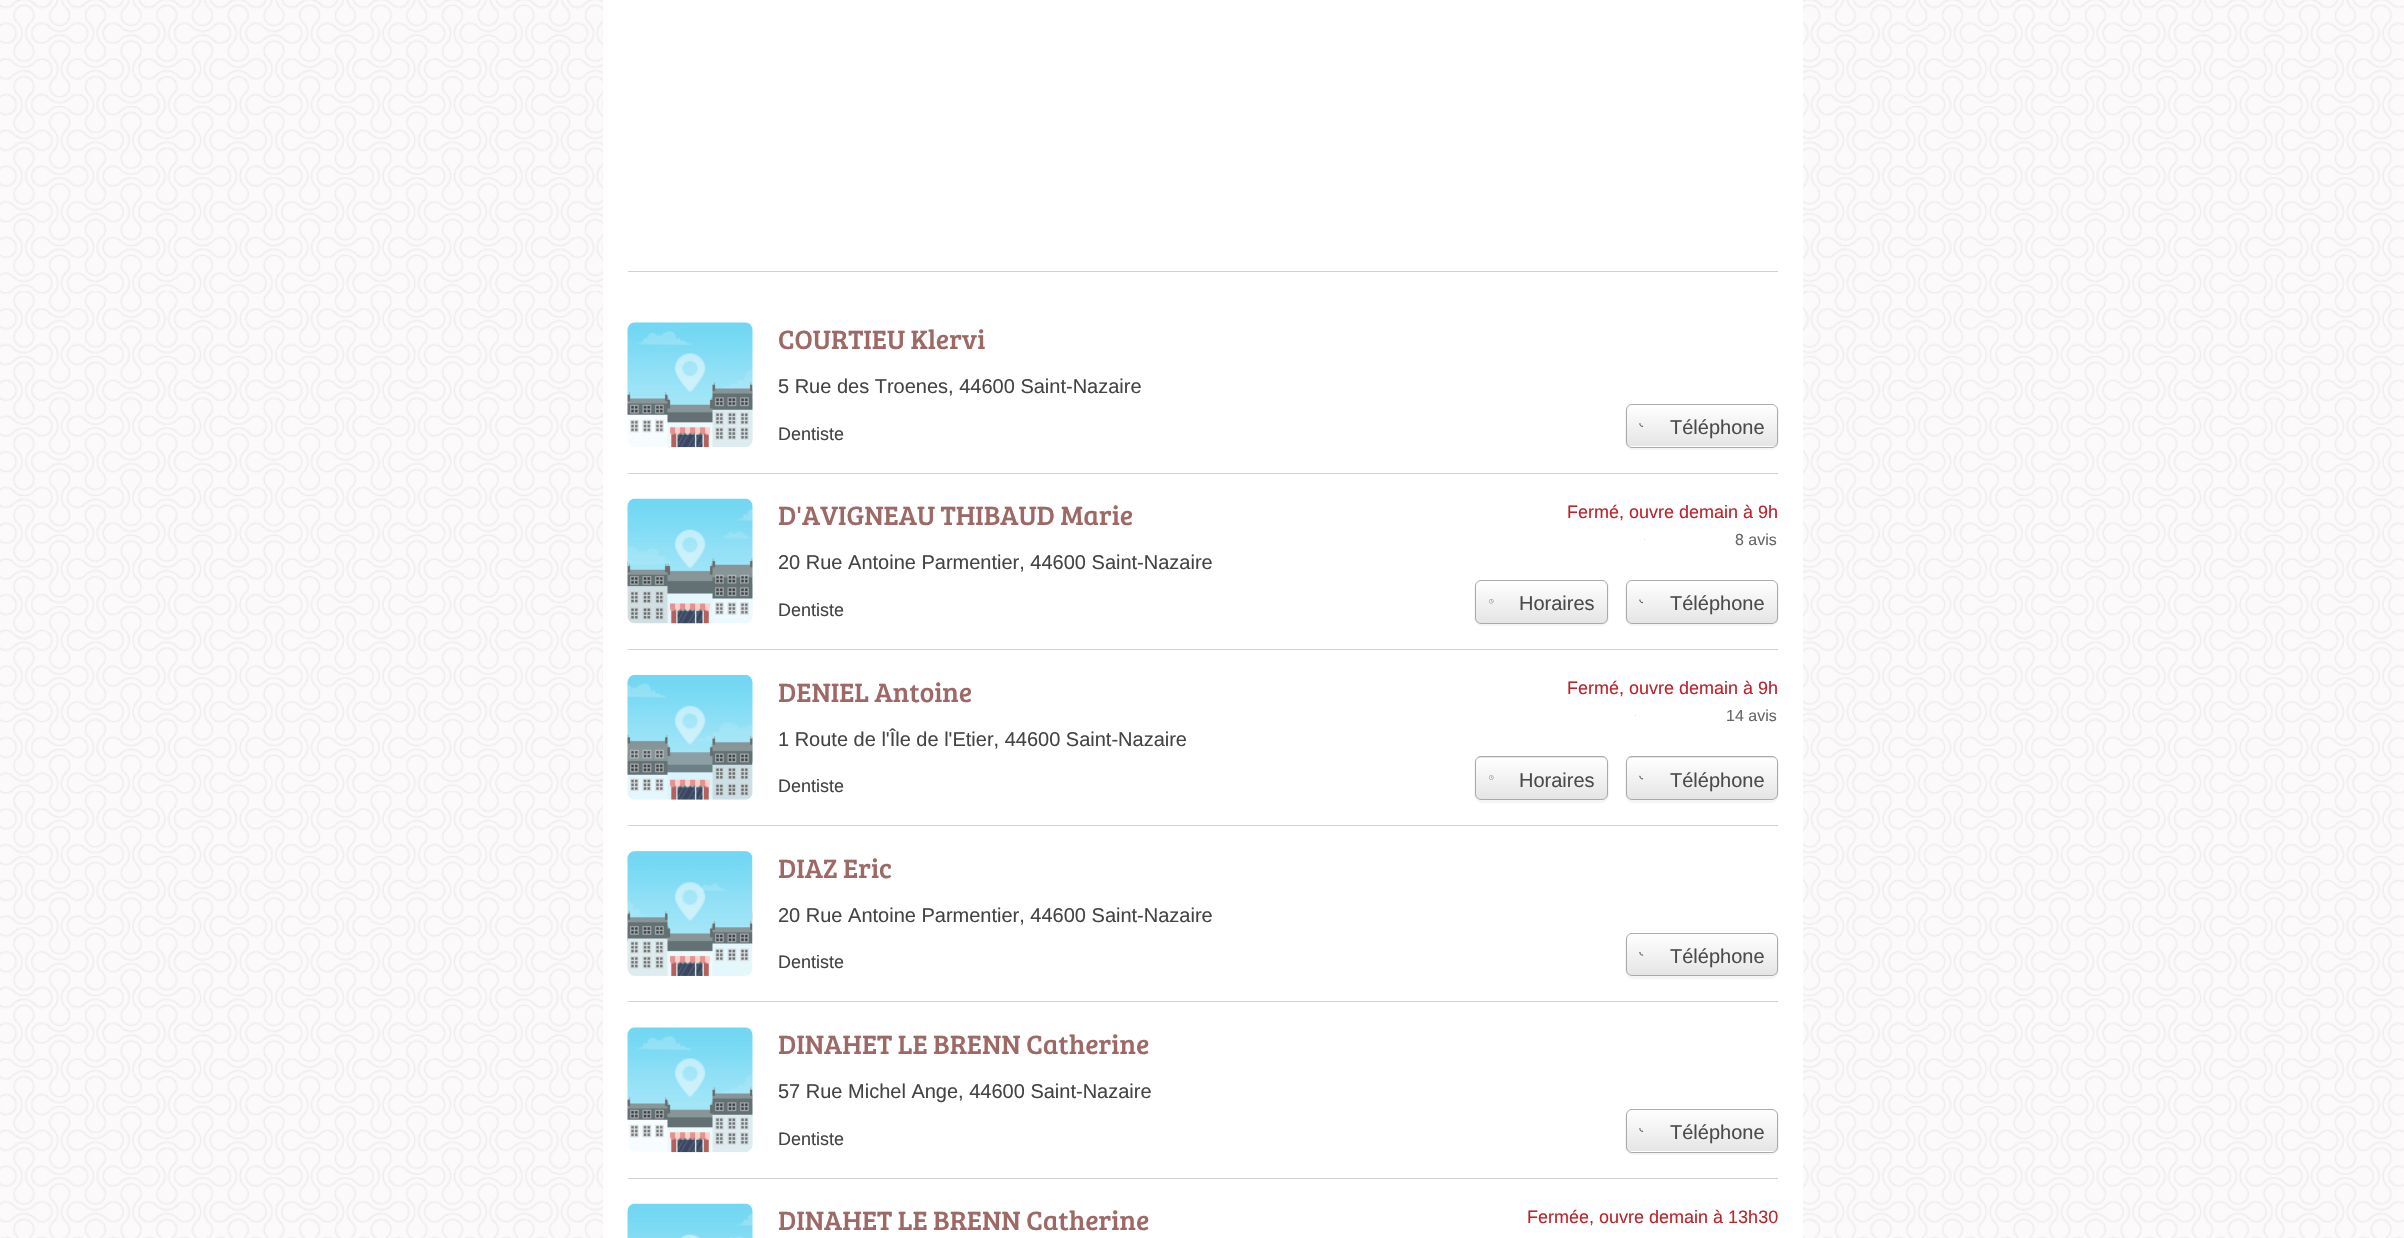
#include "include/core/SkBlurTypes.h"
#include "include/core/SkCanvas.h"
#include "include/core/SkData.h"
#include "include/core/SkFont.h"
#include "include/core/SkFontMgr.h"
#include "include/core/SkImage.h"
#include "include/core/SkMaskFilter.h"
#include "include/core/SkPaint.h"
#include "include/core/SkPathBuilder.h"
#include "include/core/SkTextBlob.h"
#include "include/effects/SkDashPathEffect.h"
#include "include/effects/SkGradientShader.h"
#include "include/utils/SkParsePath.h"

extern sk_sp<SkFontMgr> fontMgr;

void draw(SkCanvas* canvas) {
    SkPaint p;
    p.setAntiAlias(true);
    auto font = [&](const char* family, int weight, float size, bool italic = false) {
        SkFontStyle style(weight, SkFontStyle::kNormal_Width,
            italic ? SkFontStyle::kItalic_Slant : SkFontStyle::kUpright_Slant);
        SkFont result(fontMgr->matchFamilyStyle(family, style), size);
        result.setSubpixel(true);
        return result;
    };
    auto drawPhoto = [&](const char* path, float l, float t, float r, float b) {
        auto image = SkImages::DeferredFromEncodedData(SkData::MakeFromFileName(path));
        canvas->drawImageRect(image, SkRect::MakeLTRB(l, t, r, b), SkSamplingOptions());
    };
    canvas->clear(0xFFFFFFFF);
    drawPhoto("media/1.png", 0, 0, 2404, 1238);
    {
        const struct { float l, t, r, b; SkColor color; } items[] = {
            {603, 0, 1803, 1238, 0xFFFFFFFF},
            {628, 271, 1778, 272, 0xFFD1D1D1},
            {628, 473, 1778, 474, 0xFFD1D1D1},
        };
        for (auto [l, t, r, b, color] : items) {
            p.setColor(color);
            canvas->drawRect(SkRect::MakeLTRB(l, t, r, b), p);
        }
    }
    drawPhoto("media/2.png", 627, 322, 753, 448);
    auto font1 = font("Bree Serif", 400, 27.5f);
    p.setColor(0xFF9E6965);
    canvas->drawString("COURTIEU Klervi", 778, 349, font1, p);
    auto font2 = font("Liberation Sans", 400, 20);
    p.setColor(0xFF444444);
    canvas->drawString("5 Rue des Troenes, 44600 Saint-Nazaire", 778, 393, font2, p);
    auto font3 = font("Liberation Sans", 400, 18);
    canvas->drawString("Dentiste", 778, 440, font3, p);
    p.setColor(0xFFF5F5F5);
    canvas->drawPath(SkPathBuilder().moveTo(1627, 406).cubicTo(1626, 408, 1625, 410, 1625, 412).lineTo(1625, 442).cubicTo(1625, 446, 1629, 450, 1633, 450).lineTo(1771, 450).cubicTo(1775, 450, 1779, 446, 1779, 442).lineTo(1779, 412).cubicTo(1779, 409, 1778, 407, 1776, 406).cubicTo(1777, 407, 1778, 408, 1778, 410).lineTo(1778, 442).cubicTo(1778, 445, 1775, 448, 1772, 448).lineTo(1632, 448).cubicTo(1629, 448, 1626, 445, 1626, 442).lineTo(1626, 410).close().detach(), p);
    p.setColor(0xFFFFFFFF);
    canvas->drawRoundRect(SkRect::MakeLTRB(1626, 404, 1778, 448), 6, 6, p);
    canvas->save();
    canvas->clipPath(SkPathBuilder().moveTo(1632, 404).lineTo(1772, 404).cubicTo(1775.5f, 404, 1778, 406.5f, 1778, 410).lineTo(1778, 442).cubicTo(1778, 445.5f, 1775.5f, 448, 1772, 448).lineTo(1632, 448).cubicTo(1628.5f, 448, 1626, 445.5f, 1626, 442).lineTo(1626, 410).cubicTo(1626, 406.5f, 1628.5f, 404, 1632, 404).close().detach(), true);
    {
        const SkColor colors[] = {0xFFFFFFFF, 0xFFE5E5E5};
        const float stops[] = {0, 1};
        const SkPoint ends[] = {{1702, 405}, {1702, 446}};
        p.setShader(SkGradientShader::MakeLinear(ends, colors, stops, 2, SkTileMode::kClamp));
        p.setAlpha(255);
    }
    canvas->drawRect(SkRect::MakeLTRB(1626, 405, 1778, 446), p);
    canvas->restore();
    p.setStyle(SkPaint::kStroke_Style);
    p.setStrokeWidth(1);
    p.setShader(nullptr);
    p.setColor(0xFFAAAAAA);
    canvas->drawRoundRect(SkRect::MakeLTRB(1626.5f, 404.5f, 1777.5f, 447.5f), 5.5f, 5.5f, p);
    drawPhoto("media/3.png", 1639, 423, 1644, 427);
    p.setStyle(SkPaint::kFill_Style);
    p.setColor(0xFF4B4B4B);
    canvas->drawString("Téléphone", 1670, 434, font2, p);
    p.setColor(0xFFD1D1D1);
    canvas->drawRect(SkRect::MakeLTRB(628, 649, 1778, 650), p);
    drawPhoto("media/4.png", 627, 498, 753, 624);
    p.setColor(0xFF9E6965);
    canvas->drawString("D'AVIGNEAU THIBAUD Marie", 778, 525, font1, p);
    p.setColor(0xFFBE2329);
    canvas->drawString("Fermé, ouvre demain à 9h", 1567, 518, font3, p);
    p.setColor(0xFFD6D6D6);
    canvas->drawRect(SkRect::MakeLTRB(1644, 539, 1645, 540), p);
    auto font4 = font("Liberation Sans", 400, 16);
    p.setColor(0xFF666666);
    canvas->drawString("8 avis", 1735, 545, font4, p);
    p.setColor(0xFF444444);
    canvas->drawString("20 Rue Antoine Parmentier, 44600 Saint-Nazaire", 778, 569, font2, p);
    canvas->drawString("Dentiste", 778, 616, font3, p);
    p.setColor(0xFFF5F5F5);
    canvas->drawPath(SkPathBuilder().moveTo(1605, 581).cubicTo(1606, 582, 1608, 584, 1608, 586).lineTo(1608, 618).cubicTo(1608, 621, 1605, 624, 1602, 624).lineTo(1481, 624).cubicTo(1478, 624, 1475, 621, 1475, 618).lineTo(1475, 586).lineTo(1476, 583).cubicTo(1475, 584, 1474, 586, 1474, 588).lineTo(1474, 618).cubicTo(1474, 622, 1478, 626, 1482, 626).lineTo(1601, 626).cubicTo(1605, 626, 1609, 622, 1609, 618).lineTo(1609, 588).cubicTo(1609, 585, 1607, 582, 1605, 581).close().detach(), p);
    canvas->save();
    canvas->clipPath(SkPathBuilder().moveTo(1481, 580).lineTo(1602, 580).cubicTo(1605.5f, 580, 1608, 582.5f, 1608, 586).lineTo(1608, 618).cubicTo(1608, 621.5f, 1605.5f, 624, 1602, 624).lineTo(1481, 624).cubicTo(1477.5f, 624, 1475, 621.5f, 1475, 618).lineTo(1475, 586).cubicTo(1475, 582.5f, 1477.5f, 580, 1481, 580).close().detach(), true);
    {
        const SkColor colors[] = {0xFFFFFFFF, 0xFFE5E5E5};
        const float stops[] = {0, 1};
        const SkPoint ends[] = {{1541, 581}, {1541, 623}};
        p.setShader(SkGradientShader::MakeLinear(ends, colors, stops, 2, SkTileMode::kClamp));
        p.setAlpha(255);
    }
    canvas->drawRect(SkRect::MakeLTRB(1475, 581, 1608, 623), p);
    canvas->restore();
    p.setStyle(SkPaint::kStroke_Style);
    p.setShader(nullptr);
    p.setColor(0xFFAAAAAA);
    canvas->drawRoundRect(SkRect::MakeLTRB(1475.5f, 580.5f, 1607.5f, 623.5f), 5.5f, 5.5f, p);
    drawPhoto("media/5.png", 1489, 599, 1494, 604);
    p.setStyle(SkPaint::kFill_Style);
    p.setColor(0xFF4B4B4B);
    canvas->drawString("Horaires", 1519, 610, font2, p);
    p.setColor(0xFFF5F5F5);
    canvas->drawPath(SkPathBuilder().moveTo(1775, 581).cubicTo(1776, 582, 1778, 584, 1778, 586).lineTo(1778, 618).cubicTo(1778, 621, 1775, 624, 1772, 624).lineTo(1632, 624).cubicTo(1629, 624, 1626, 621, 1626, 618).lineTo(1626, 586).cubicTo(1626, 584, 1627, 583, 1628, 582).cubicTo(1626, 583, 1625, 585, 1625, 588).lineTo(1625, 618).cubicTo(1625, 622, 1629, 626, 1633, 626).lineTo(1771, 626).cubicTo(1775, 626, 1779, 622, 1779, 618).lineTo(1779, 588).cubicTo(1779, 585, 1777, 582, 1775, 581).close().detach(), p);
    canvas->save();
    canvas->clipPath(SkPathBuilder().moveTo(1632, 580).lineTo(1772, 580).cubicTo(1775.5f, 580, 1778, 582.5f, 1778, 586).lineTo(1778, 618).cubicTo(1778, 621.5f, 1775.5f, 624, 1772, 624).lineTo(1632, 624).cubicTo(1628.5f, 624, 1626, 621.5f, 1626, 618).lineTo(1626, 586).cubicTo(1626, 582.5f, 1628.5f, 580, 1632, 580).close().detach(), true);
    {
        const SkColor colors[] = {0xFFFFFFFF, 0xFFE5E5E5};
        const float stops[] = {0, 1};
        const SkPoint ends[] = {{1702, 581}, {1702, 623}};
        p.setShader(SkGradientShader::MakeLinear(ends, colors, stops, 2, SkTileMode::kClamp));
        p.setAlpha(255);
    }
    canvas->drawRect(SkRect::MakeLTRB(1626, 581, 1778, 623), p);
    canvas->restore();
    p.setStyle(SkPaint::kStroke_Style);
    p.setShader(nullptr);
    p.setColor(0xFFAAAAAA);
    canvas->drawRoundRect(SkRect::MakeLTRB(1626.5f, 580.5f, 1777.5f, 623.5f), 5.5f, 5.5f, p);
    drawPhoto("media/6.png", 1639, 599, 1644, 604);
    p.setStyle(SkPaint::kFill_Style);
    p.setColor(0xFF4B4B4B);
    canvas->drawString("Téléphone", 1670, 610, font2, p);
    p.setColor(0xFFD1D1D1);
    canvas->drawRect(SkRect::MakeLTRB(628, 825, 1778, 826), p);
    drawPhoto("media/7.png", 627, 674, 753, 800);
    p.setColor(0xFF9E6965);
    canvas->drawString("DENIEL Antoine", 778, 702, font1, p);
    p.setColor(0xFFBE2329);
    canvas->drawString("Fermé, ouvre demain à 9h", 1567, 694, font3, p);
    p.setColor(0xFFD6D6D6);
    canvas->drawRect(SkRect::MakeLTRB(1635, 715, 1636, 716), p);
    p.setColor(0xFF666666);
    canvas->drawString("14 avis", 1726, 721, font4, p);
    p.setColor(0xFF444444);
    canvas->drawString("1 Route de l'Île de l'Etier, 44600 Saint-Nazaire", 778, 746, font2, p);
    canvas->drawString("Dentiste", 778, 792, font3, p);
    p.setColor(0xFFF5F5F5);
    canvas->drawPath(SkPathBuilder().moveTo(1482, 756).lineTo(1479, 757).lineTo(1481, 756).lineTo(1602, 756).cubicTo(1605, 756, 1608, 759, 1608, 762).lineTo(1608, 794).cubicTo(1608, 797, 1605, 800, 1602, 800).lineTo(1481, 800).cubicTo(1478, 800, 1475, 797, 1475, 794).lineTo(1475, 762).cubicTo(1475, 760, 1476, 759, 1477, 758).cubicTo(1475, 759, 1474, 761, 1474, 764).lineTo(1474, 795).cubicTo(1474, 799, 1478, 803, 1482, 803).lineTo(1601, 803).cubicTo(1605, 803, 1609, 799, 1609, 795).lineTo(1609, 764).cubicTo(1609, 760, 1605, 756, 1601, 756).close().detach(), p);
    canvas->save();
    canvas->clipPath(SkPathBuilder().moveTo(1481, 756).lineTo(1602, 756).cubicTo(1605.5f, 756, 1608, 758.5f, 1608, 762).lineTo(1608, 794).cubicTo(1608, 797.5f, 1605.5f, 800, 1602, 800).lineTo(1481, 800).cubicTo(1477.5f, 800, 1475, 797.5f, 1475, 794).lineTo(1475, 762).cubicTo(1475, 758.5f, 1477.5f, 756, 1481, 756).close().detach(), true);
    {
        const SkColor colors[] = {0xFFFFFFFF, 0xFFE5E5E5};
        const float stops[] = {0, 1};
        const SkPoint ends[] = {{1541, 716}, {1541, 758}};
        p.setShader(SkGradientShader::MakeLinear(ends, colors, stops, 2, SkTileMode::kClamp));
        p.setAlpha(255);
    }
    canvas->drawRect(SkRect::MakeLTRB(1475, 756, 1608, 758), p);
    {
        const SkColor colors[] = {0xFFFFFFFF, 0xFFE5E5E5};
        const float stops[] = {0, 1};
        const SkPoint ends[] = {{1541, 758}, {1541, 799}};
        p.setShader(SkGradientShader::MakeLinear(ends, colors, stops, 2, SkTileMode::kClamp));
        p.setAlpha(255);
    }
    canvas->drawRect(SkRect::MakeLTRB(1475, 758, 1608, 799), p);
    canvas->restore();
    p.setStyle(SkPaint::kStroke_Style);
    p.setShader(nullptr);
    p.setColor(0xFFAAAAAA);
    canvas->drawRoundRect(SkRect::MakeLTRB(1475.5f, 756.5f, 1607.5f, 799.5f), 5.5f, 5.5f, p);
    drawPhoto("media/8.png", 1489, 775, 1494, 780);
    p.setStyle(SkPaint::kFill_Style);
    p.setColor(0xFF4B4B4B);
    canvas->drawString("Horaires", 1519, 787, font2, p);
    p.setColor(0xFFF5F5F5);
    canvas->drawPath(SkPathBuilder(SkPathFillType::kEvenOdd).moveTo(1633, 756).cubicTo(1629, 756, 1625, 760, 1625, 764).lineTo(1625, 795).cubicTo(1625, 799, 1629, 803, 1633, 803).lineTo(1771, 803).cubicTo(1775, 803, 1779, 799, 1779, 795).lineTo(1779, 764).cubicTo(1779, 760, 1775, 756, 1771, 756).close().moveTo(1632, 756).cubicTo(1629, 756, 1626, 759, 1626, 762).lineTo(1626, 794).cubicTo(1626, 797, 1629, 800, 1632, 800).lineTo(1772, 800).cubicTo(1775, 800, 1778, 797, 1778, 794).lineTo(1778, 762).cubicTo(1778, 759, 1775, 756, 1772, 756).close().detach(), p);
    canvas->save();
    canvas->clipPath(SkPathBuilder().moveTo(1632, 756).lineTo(1772, 756).cubicTo(1775.5f, 756, 1778, 758.5f, 1778, 762).lineTo(1778, 794).cubicTo(1778, 797.5f, 1775.5f, 800, 1772, 800).lineTo(1632, 800).cubicTo(1628.5f, 800, 1626, 797.5f, 1626, 794).lineTo(1626, 762).cubicTo(1626, 758.5f, 1628.5f, 756, 1632, 756).close().detach(), true);
    {
        const SkColor colors[] = {0xFFFFFFFF, 0xFFE5E5E5};
        const float stops[] = {0, 1};
        const SkPoint ends[] = {{1702, 716}, {1702, 758}};
        p.setShader(SkGradientShader::MakeLinear(ends, colors, stops, 2, SkTileMode::kClamp));
        p.setAlpha(255);
    }
    canvas->drawRect(SkRect::MakeLTRB(1626, 756, 1778, 758), p);
    {
        const SkColor colors[] = {0xFFFFFFFF, 0xFFE5E5E5};
        const float stops[] = {0, 1};
        const SkPoint ends[] = {{1702, 758}, {1702, 799}};
        p.setShader(SkGradientShader::MakeLinear(ends, colors, stops, 2, SkTileMode::kClamp));
        p.setAlpha(255);
    }
    canvas->drawRect(SkRect::MakeLTRB(1626, 758, 1778, 799), p);
    canvas->restore();
    p.setStyle(SkPaint::kStroke_Style);
    p.setShader(nullptr);
    p.setColor(0xFFAAAAAA);
    canvas->drawRoundRect(SkRect::MakeLTRB(1626.5f, 756.5f, 1777.5f, 799.5f), 5.5f, 5.5f, p);
    drawPhoto("media/9.png", 1639, 775, 1644, 780);
    p.setStyle(SkPaint::kFill_Style);
    p.setColor(0xFF4B4B4B);
    canvas->drawString("Téléphone", 1670, 787, font2, p);
    p.setColor(0xFFD1D1D1);
    canvas->drawRect(SkRect::MakeLTRB(628, 1001, 1778, 1002), p);
    drawPhoto("media/10.png", 627, 851, 753, 976);
    p.setColor(0xFF9E6965);
    canvas->drawString("DIAZ Eric", 778, 878, font1, p);
    p.setColor(0xFF444444);
    canvas->drawString("20 Rue Antoine Parmentier, 44600 Saint-Nazaire", 778, 922, font2, p);
    canvas->drawString("Dentiste", 778, 968, font3, p);
    p.setColor(0xFFF5F5F5);
    canvas->drawPath(SkPathBuilder().moveTo(1627, 936).cubicTo(1626, 937, 1625, 939, 1625, 941).lineTo(1625, 971).cubicTo(1625, 975, 1629, 979, 1633, 979).lineTo(1771, 979).cubicTo(1775, 979, 1779, 975, 1779, 971).lineTo(1779, 941).cubicTo(1779, 939, 1778, 937, 1777, 935).lineTo(1778, 938).lineTo(1778, 970).cubicTo(1778, 974, 1775, 976, 1772, 976).lineTo(1632, 976).cubicTo(1629, 976, 1626, 974, 1626, 970).lineTo(1626, 938).close().detach(), p);
    canvas->save();
    canvas->clipPath(SkPathBuilder().moveTo(1632, 933).lineTo(1772, 933).cubicTo(1775.5f, 933, 1778, 935.5f, 1778, 939).lineTo(1778, 970).cubicTo(1778, 973.5f, 1775.5f, 976, 1772, 976).lineTo(1632, 976).cubicTo(1628.5f, 976, 1626, 973.5f, 1626, 970).lineTo(1626, 939).cubicTo(1626, 935.5f, 1628.5f, 933, 1632, 933).close().detach(), true);
    {
        const SkColor colors[] = {0xFFFFFFFF, 0xFFE5E5E5};
        const float stops[] = {0, 1};
        const SkPoint ends[] = {{1702, 934}, {1702, 975}};
        p.setShader(SkGradientShader::MakeLinear(ends, colors, stops, 2, SkTileMode::kClamp));
        p.setAlpha(255);
    }
    canvas->drawRect(SkRect::MakeLTRB(1626, 934, 1778, 975), p);
    canvas->restore();
    p.setStyle(SkPaint::kStroke_Style);
    p.setShader(nullptr);
    p.setColor(0xFFAAAAAA);
    canvas->drawRoundRect(SkRect::MakeLTRB(1626.5f, 933.5f, 1777.5f, 975.5f), 5.5f, 5.5f, p);
    drawPhoto("media/11.png", 1639, 951, 1644, 956);
    p.setStyle(SkPaint::kFill_Style);
    p.setColor(0xFF4B4B4B);
    canvas->drawString("Téléphone", 1670, 963, font2, p);
    p.setColor(0xFFD1D1D1);
    canvas->drawRect(SkRect::MakeLTRB(628, 1178, 1778, 1179), p);
    drawPhoto("media/2.png", 627, 1027, 753, 1153);
    p.setColor(0xFF9E6965);
    canvas->drawString("DINAHET LE BRENN Catherine", 778, 1054, font1, p);
    p.setColor(0xFF444444);
    canvas->drawString("57 Rue Michel Ange, 44600 Saint-Nazaire", 778, 1098, font2, p);
    canvas->drawString("Dentiste", 778, 1145, font3, p);
    p.setColor(0xFFF5F5F5);
    canvas->drawPath(SkPathBuilder().moveTo(1627, 1111).cubicTo(1626, 1113, 1625, 1115, 1625, 1117).lineTo(1625, 1147).cubicTo(1625, 1151, 1629, 1155, 1633, 1155).lineTo(1771, 1155).cubicTo(1775, 1155, 1779, 1151, 1779, 1147).lineTo(1779, 1117).cubicTo(1779, 1114, 1778, 1112, 1776, 1111).cubicTo(1777, 1112, 1778, 1113, 1778, 1115).lineTo(1778, 1146).cubicTo(1778, 1150, 1775, 1152, 1772, 1152).lineTo(1632, 1152).cubicTo(1629, 1152, 1626, 1150, 1626, 1146).lineTo(1626, 1115).close().detach(), p);
    canvas->save();
    canvas->clipPath(SkPathBuilder().moveTo(1632, 1109).lineTo(1772, 1109).cubicTo(1775.5f, 1109, 1778, 1111.5f, 1778, 1115).lineTo(1778, 1147).cubicTo(1778, 1150.5f, 1775.5f, 1153, 1772, 1153).lineTo(1632, 1153).cubicTo(1628.5f, 1153, 1626, 1150.5f, 1626, 1147).lineTo(1626, 1115).cubicTo(1626, 1111.5f, 1628.5f, 1109, 1632, 1109).close().detach(), true);
    {
        const SkColor colors[] = {0xFFFFFFFF, 0xFFE5E5E5};
        const float stops[] = {0, 1};
        const SkPoint ends[] = {{1702, 1110}, {1702, 1151}};
        p.setShader(SkGradientShader::MakeLinear(ends, colors, stops, 2, SkTileMode::kClamp));
        p.setAlpha(255);
    }
    canvas->drawRect(SkRect::MakeLTRB(1626, 1110, 1778, 1151), p);
    {
        const SkColor colors[] = {0xFFFFFFFF, 0xFFE5E5E5};
        const float stops[] = {0, 1};
        const SkPoint ends[] = {{1702, 1151}, {1702, 1193}};
        p.setShader(SkGradientShader::MakeLinear(ends, colors, stops, 2, SkTileMode::kClamp));
        p.setAlpha(255);
    }
    canvas->drawRect(SkRect::MakeLTRB(1626, 1151, 1778, 1153), p);
    canvas->restore();
    p.setStyle(SkPaint::kStroke_Style);
    p.setShader(nullptr);
    p.setColor(0xFFAAAAAA);
    canvas->drawRoundRect(SkRect::MakeLTRB(1626.5f, 1109.5f, 1777.5f, 1152.5f), 5.5f, 5.5f, p);
    drawPhoto("media/3.png", 1639, 1128, 1644, 1132);
    p.setStyle(SkPaint::kFill_Style);
    p.setColor(0xFF4B4B4B);
    canvas->drawString("Téléphone", 1670, 1139, font2, p);
    drawPhoto("media/12.png", 627, 1203, 753, 1238);
    p.setColor(0xFF9E6965);
    canvas->drawString("DINAHET LE BRENN Catherine", 778, 1230, font1, p);
    p.setColor(0xFFBE2329);
    canvas->drawString("Fermée, ouvre demain à 13h30", 1527, 1223, font3, p);
}
